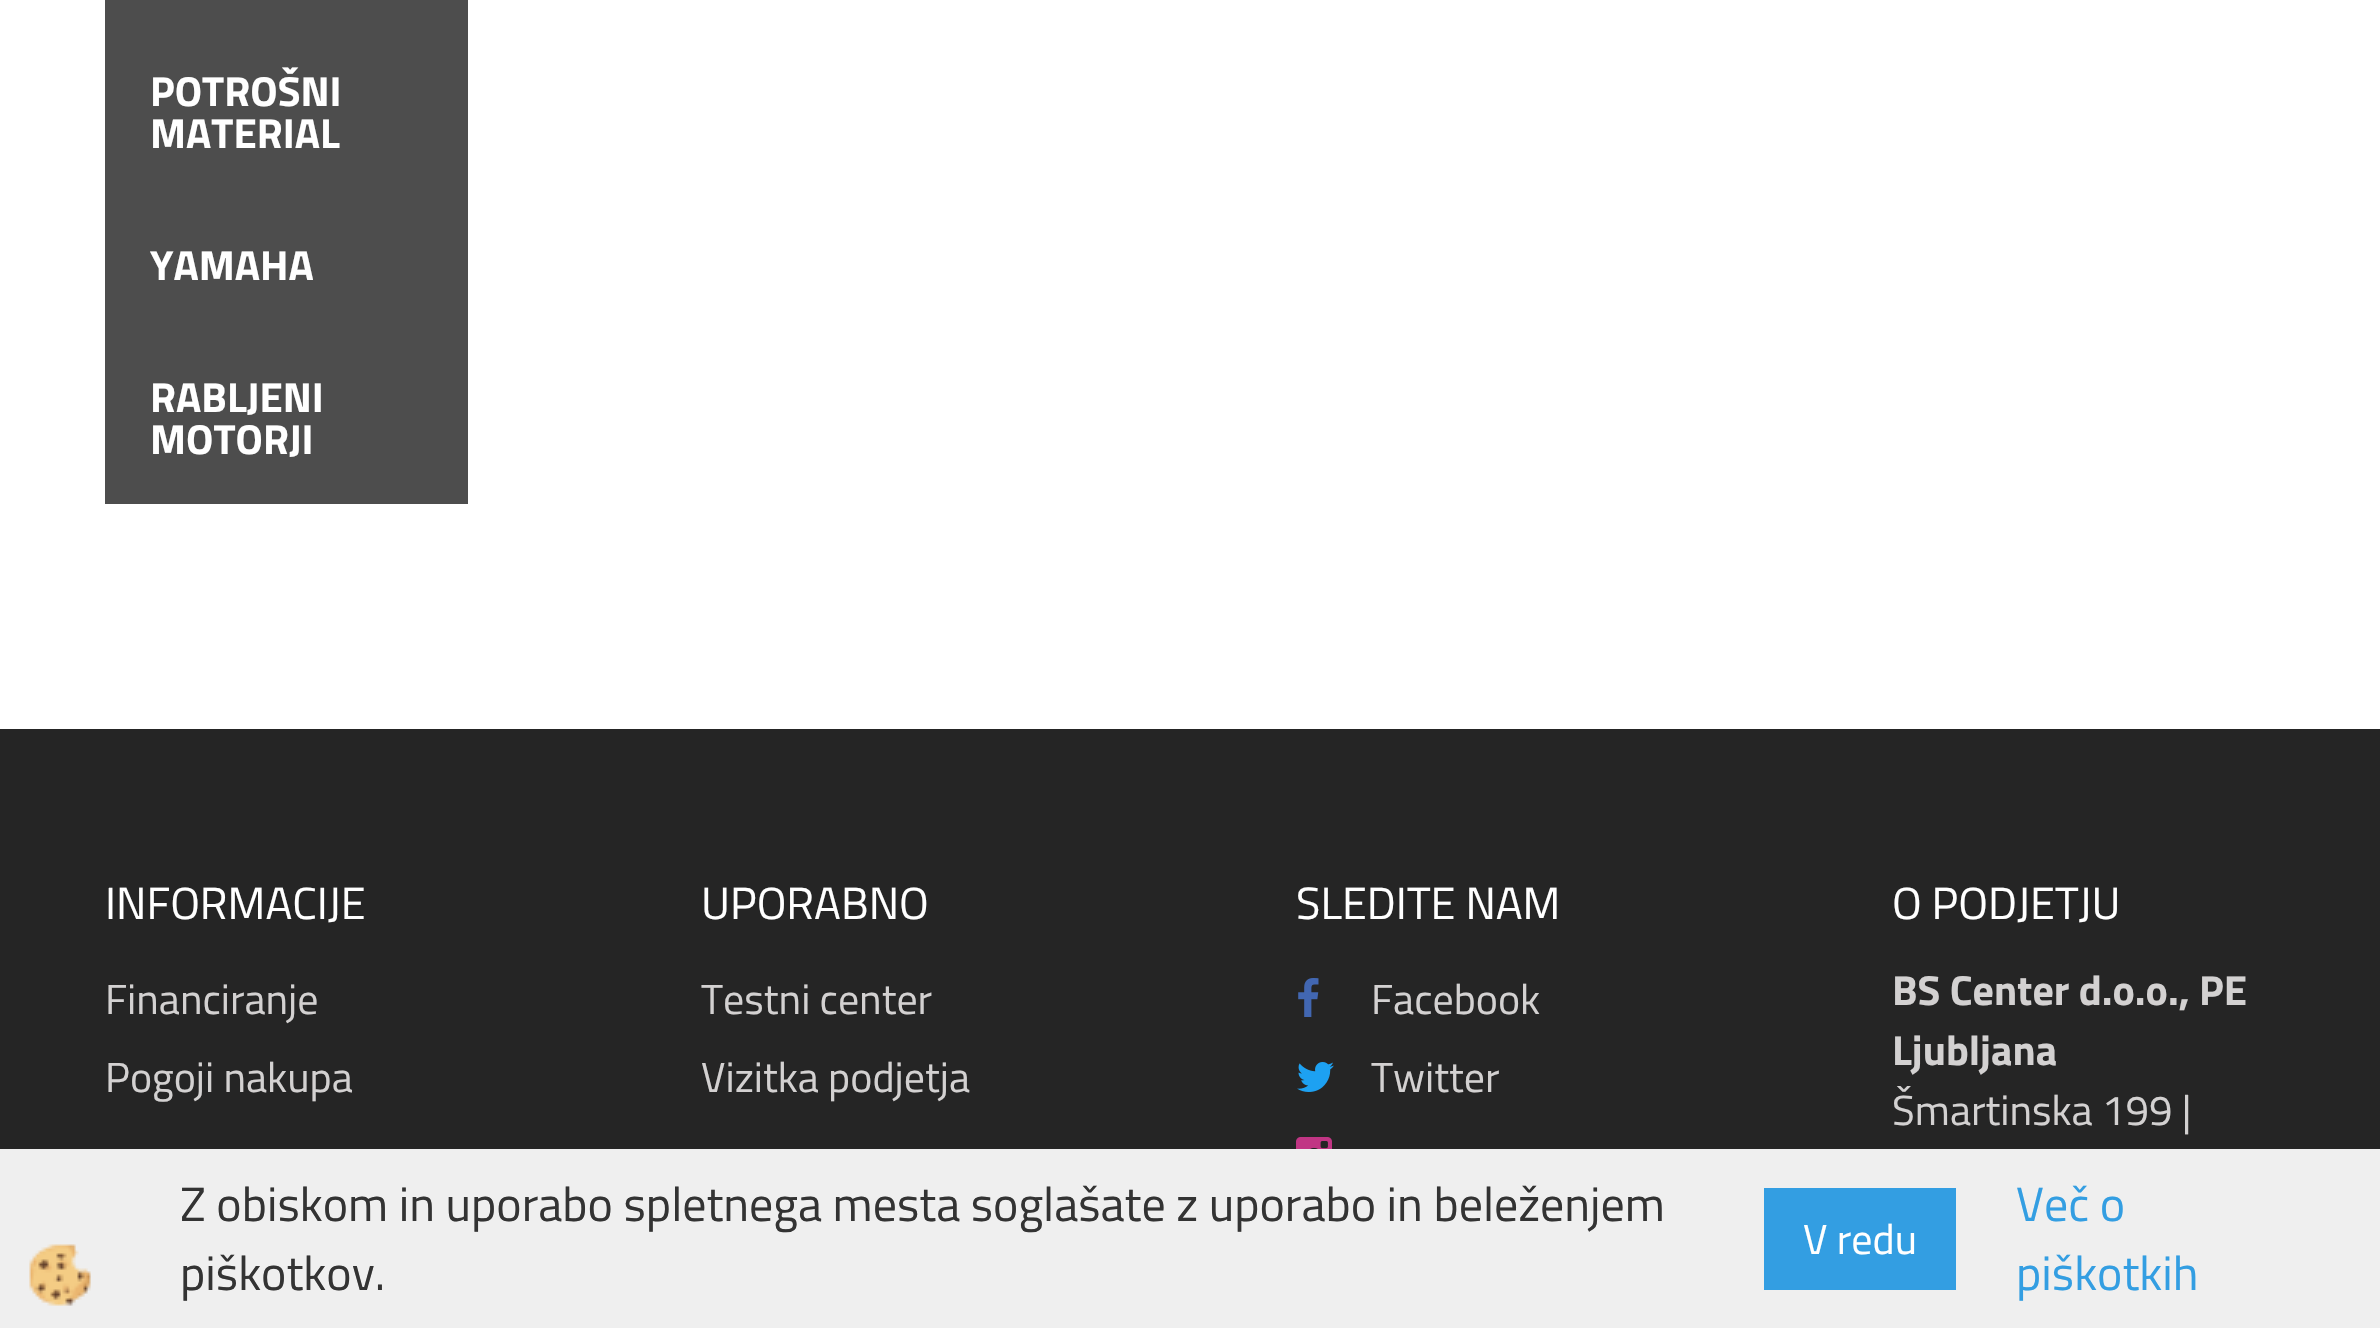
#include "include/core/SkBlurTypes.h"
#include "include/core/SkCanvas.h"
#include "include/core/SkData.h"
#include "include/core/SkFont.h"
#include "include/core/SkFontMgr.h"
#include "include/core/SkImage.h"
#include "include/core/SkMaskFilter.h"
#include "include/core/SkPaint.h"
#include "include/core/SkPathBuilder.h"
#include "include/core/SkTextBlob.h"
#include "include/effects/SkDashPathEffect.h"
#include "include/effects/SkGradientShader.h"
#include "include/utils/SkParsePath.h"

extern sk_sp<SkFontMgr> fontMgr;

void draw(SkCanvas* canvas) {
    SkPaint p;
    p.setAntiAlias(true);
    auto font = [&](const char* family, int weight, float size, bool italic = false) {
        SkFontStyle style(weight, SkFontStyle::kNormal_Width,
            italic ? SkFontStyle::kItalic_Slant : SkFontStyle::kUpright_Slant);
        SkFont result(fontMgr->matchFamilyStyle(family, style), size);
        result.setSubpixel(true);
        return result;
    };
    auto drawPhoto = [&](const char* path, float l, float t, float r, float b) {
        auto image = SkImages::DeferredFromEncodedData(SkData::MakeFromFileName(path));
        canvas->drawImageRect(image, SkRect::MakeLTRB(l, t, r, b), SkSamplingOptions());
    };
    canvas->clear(0xFFFFFFFF);
    p.setColor(0xFF4D4D4D);
    canvas->drawRect(SkRect::MakeLTRB(105, 0, 468, 504), p);
    auto font1 = font("Titillium Web", 700, 42);
    p.setColor(0xFFFFFFFF);
    {
        const struct { const char* s; float x, y; } items[] = {
            {"POTROŠNI", 150, 106},
            {"MATERIAL", 150, 148},
            {"YAMAHA", 150, 280},
            {"RABLJENI", 150, 412},
            {"MOTORJI", 150, 454},
        };
        for (auto [s, x, y] : items) {
            canvas->drawString(s, x, y, font1, p);
        }
    }
    p.setColor(0xFF252525);
    canvas->drawRect(SkRect::MakeLTRB(0, 729, 2380, 1149), p);
    auto font2 = font("Titillium Web", 400, 45);
    p.setColor(0xFFFFFFFF);
    canvas->drawString("INFORMACIJE", 105, 919, font2, p);
    auto font3 = font("Titillium Web", 400, 42);
    p.setColor(0xFFD3D1D1);
    canvas->drawString("Financiranje", 105, 1014, font3, p);
    canvas->drawString("Pogoji nakupa", 105, 1092, font3, p);
    p.setColor(0xFFFFFFFF);
    canvas->drawString("UPORABNO", 701, 919, font2, p);
    p.setColor(0xFFD3D1D1);
    canvas->drawString("Testni center", 701, 1014, font3, p);
    canvas->drawString("Vizitka podjetja", 701, 1092, font3, p);
    p.setColor(0xFFFFFFFF);
    canvas->drawString("SLEDITE NAM", 1296, 919, font2, p);
    drawPhoto("media/1.png", 1298, 978, 1319, 1017);
    p.setColor(0xFFD3D1D1);
    canvas->drawString("Facebook", 1371, 1014, font3, p);
    drawPhoto("media/2.png", 1297, 1062, 1334, 1092);
    canvas->drawString("Twitter", 1371, 1092, font3, p);
    drawPhoto("media/3.png", 1296, 1137, 1332, 1149);
    p.setColor(0xFFFFFFFF);
    canvas->drawString("O PODJETJU", 1892, 919, font2, p);
    p.setColor(0xFFD3D1D1);
    canvas->drawString("BS Center d.o.o., PE", 1892, 1005, font1, p);
    canvas->drawString("Ljubljana", 1892, 1065, font1, p);
    canvas->drawString("Šmartinska 199 |", 1892, 1125, font3, p);
    p.setColor(0xFFEFEFEF);
    canvas->drawRect(SkRect::MakeLTRB(0, 1149, 2380, 1328), p);
    drawPhoto("media/4.png", 29, 1244, 91, 1306);
    auto font4 = font("Titillium Web", 400, 48);
    p.setColor(0xFF333333);
    canvas->drawString("Z obiskom in uporabo spletnega mesta soglašate z uporabo in beleženjem", 180, 1221, font4, p);
    p.setColor(0xFF339EE2);
    canvas->drawRect(SkRect::MakeLTRB(1764, 1188, 1956, 1290), p);
    p.setColor(0xFFFFFFFF);
    canvas->drawString("V redu", 1803, 1254, font3, p);
    p.setColor(0xFF339EE2);
    canvas->drawString("Več o", 2016, 1221, font4, p);
    canvas->drawString("piškotkih", 2016, 1290, font4, p);
    p.setColor(0xFF333333);
    canvas->drawString("piškotkov.", 180, 1290, font4, p);
}
